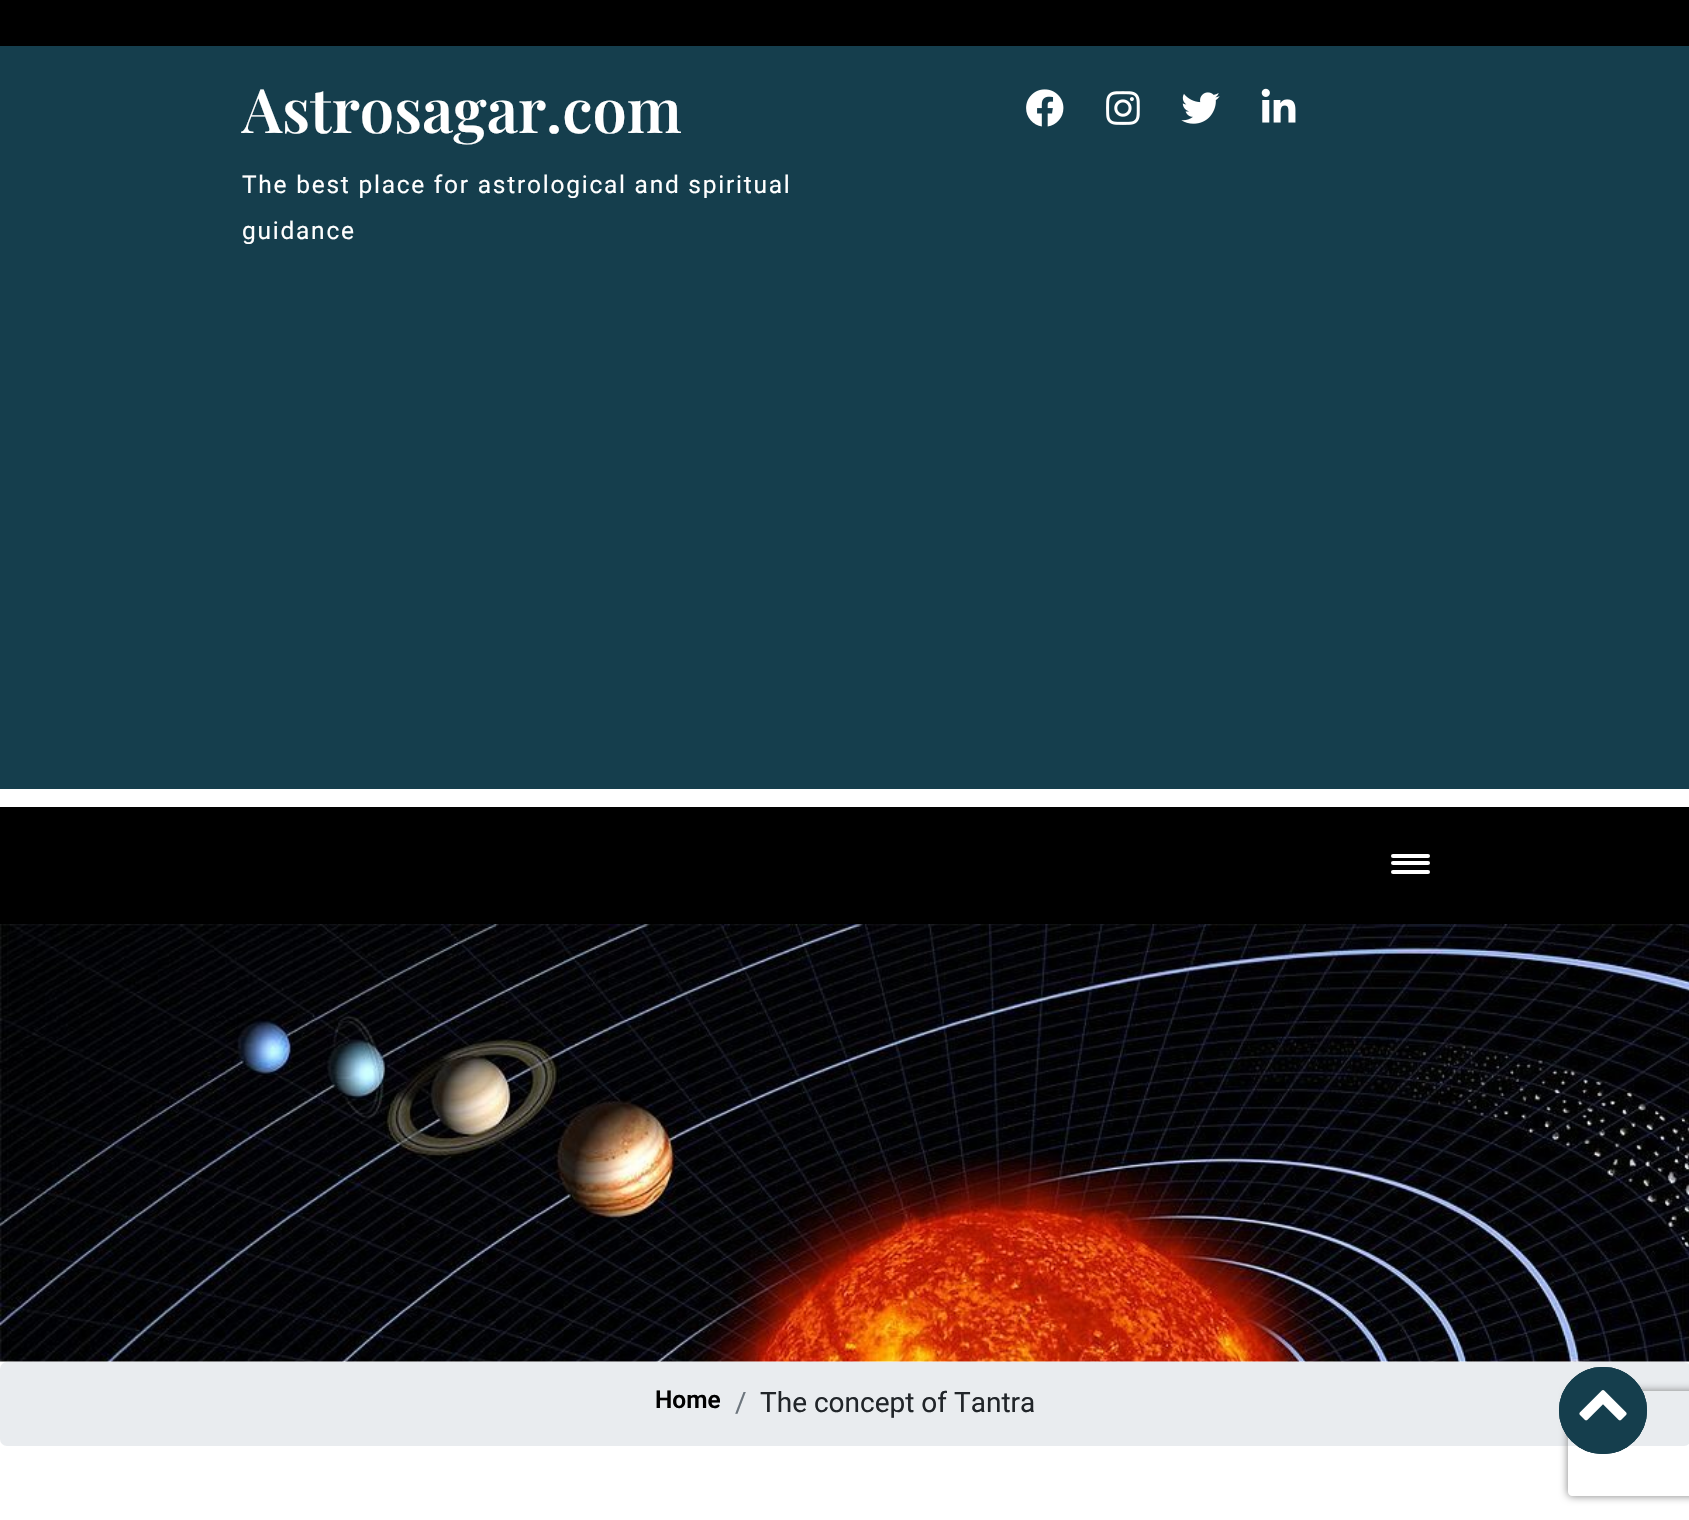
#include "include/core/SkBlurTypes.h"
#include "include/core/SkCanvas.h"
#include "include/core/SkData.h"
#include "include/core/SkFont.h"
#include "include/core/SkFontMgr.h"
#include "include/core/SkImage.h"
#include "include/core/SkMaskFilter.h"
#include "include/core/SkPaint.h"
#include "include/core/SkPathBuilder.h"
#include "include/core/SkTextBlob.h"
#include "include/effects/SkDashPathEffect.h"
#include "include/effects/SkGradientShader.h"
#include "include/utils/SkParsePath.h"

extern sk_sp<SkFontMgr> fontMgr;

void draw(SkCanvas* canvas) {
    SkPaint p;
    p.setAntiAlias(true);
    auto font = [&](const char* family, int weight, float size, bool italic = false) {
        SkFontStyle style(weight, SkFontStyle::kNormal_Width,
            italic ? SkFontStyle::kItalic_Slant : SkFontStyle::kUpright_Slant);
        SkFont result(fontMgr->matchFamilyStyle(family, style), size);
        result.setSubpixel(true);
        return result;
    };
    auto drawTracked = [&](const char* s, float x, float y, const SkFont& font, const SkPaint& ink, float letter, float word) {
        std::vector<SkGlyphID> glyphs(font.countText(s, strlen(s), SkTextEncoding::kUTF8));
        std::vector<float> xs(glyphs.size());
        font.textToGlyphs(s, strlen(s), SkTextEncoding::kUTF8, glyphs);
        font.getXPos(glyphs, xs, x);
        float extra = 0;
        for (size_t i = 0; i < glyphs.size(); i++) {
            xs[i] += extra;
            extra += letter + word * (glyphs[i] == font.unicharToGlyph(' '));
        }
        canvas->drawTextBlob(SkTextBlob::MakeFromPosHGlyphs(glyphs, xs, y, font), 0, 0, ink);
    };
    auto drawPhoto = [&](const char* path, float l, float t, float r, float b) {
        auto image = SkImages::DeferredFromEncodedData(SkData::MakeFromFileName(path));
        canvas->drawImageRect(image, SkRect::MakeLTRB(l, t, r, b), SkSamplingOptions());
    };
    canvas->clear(0xFFFFFFFF);
    p.setColor(0xFF000000);
    canvas->drawRect(SkRect::MakeLTRB(0, 0, 1689, 46), p);
    p.setColor(0xFF153E4D);
    canvas->drawRect(SkRect::MakeLTRB(0, 46, 1689, 789), p);
    auto font1 = font("Playfair Display", 600, 61.25f);
    p.setColor(0xFFFFFFFF);
    canvas->drawString("Astrosagar.com", 242, 133, font1, p);
    auto font2 = font("Roboto", 400, 24.5f);
    drawTracked("The best place for astrological and spiritual", 242, 193, font2, p, 1.75f, 0);
    drawTracked("guidance", 242, 239, font2, p, 1.75f, 0);
    drawPhoto("media/1.png", 1026, 89, 1064, 127);
    drawPhoto("media/2.png", 1106, 91, 1140, 125);
    drawPhoto("media/3.png", 1181, 92, 1220, 124);
    drawPhoto("media/4.png", 1261, 88, 1296, 123);
    p.setColor(0xFF000000);
    canvas->drawRect(SkRect::MakeLTRB(0, 807, 1689, 924), p);
    p.setColor(0xFFFFFFFF);
    canvas->drawRoundRect(SkRect::MakeLTRB(1391, 854, 1430, 858), 2, 2, p);
    canvas->drawRoundRect(SkRect::MakeLTRB(1391, 861, 1430, 865), 2, 2, p);
    canvas->drawRoundRect(SkRect::MakeLTRB(1391, 870, 1430, 874), 2, 2, p);
    drawPhoto("media/5.png", 0, 924, 1689, 1362);
    p.setColor(0xFFE9ECEF);
    canvas->drawRoundRect(SkRect::MakeLTRB(0, 1362, 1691, 1446), 7, 7, p);
    canvas->save();
    canvas->clipPath(SkPathBuilder(SkPathFillType::kEvenOdd).moveTo(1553, 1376).lineTo(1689, 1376).lineTo(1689, 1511).lineTo(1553, 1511).close().moveTo(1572, 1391).lineTo(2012, 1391).cubicTo(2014, 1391, 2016, 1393, 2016, 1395).lineTo(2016, 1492).cubicTo(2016, 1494, 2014, 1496, 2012, 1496).lineTo(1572, 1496).cubicTo(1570, 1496, 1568, 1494, 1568, 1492).lineTo(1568, 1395).cubicTo(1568, 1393, 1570, 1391, 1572, 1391).close().detach(), true);
    p.setColor(0xFF808080);
    p.setMaskFilter(SkMaskFilter::MakeBlur(kNormal_SkBlurStyle, 4.5f));
    canvas->drawRoundRect(SkRect::MakeLTRB(1568, 1391, 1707, 1496), 4, 4, p);
    p.setMaskFilter(nullptr);
    canvas->restore();
    p.setColor(0xFF153E4D);
    canvas->drawRoundRect(SkRect::MakeLTRB(1559, 1367, 1647, 1454), 43.5f, 43.5f, p);
    drawPhoto("media/6.png", 1579, 1390, 1627, 1421);
    p.setStyle(SkPaint::kStroke_Style);
    p.setStrokeWidth(2);
    canvas->drawRoundRect(SkRect::MakeLTRB(1560, 1368, 1646, 1453), 42.5f, 42.5f, p);
    canvas->drawRoundRect(SkRect::MakeLTRB(1560, 1368, 1646, 1453), 42.5f, 42.5f, p);
    auto font3 = font("Roboto", 600, 24.5f);
    p.setStyle(SkPaint::kFill_Style);
    p.setColor(0xFF000000);
    canvas->drawString("Home", 655, 1408, font3, p);
    auto font4 = font("Roboto", 400, 28);
    p.setColor(0xFF6C757D);
    canvas->drawString("/", 735, 1412, font4, p);
    p.setColor(0xFF212529);
    canvas->drawString("The concept of Tantra", 760, 1412, font4, p);
}
